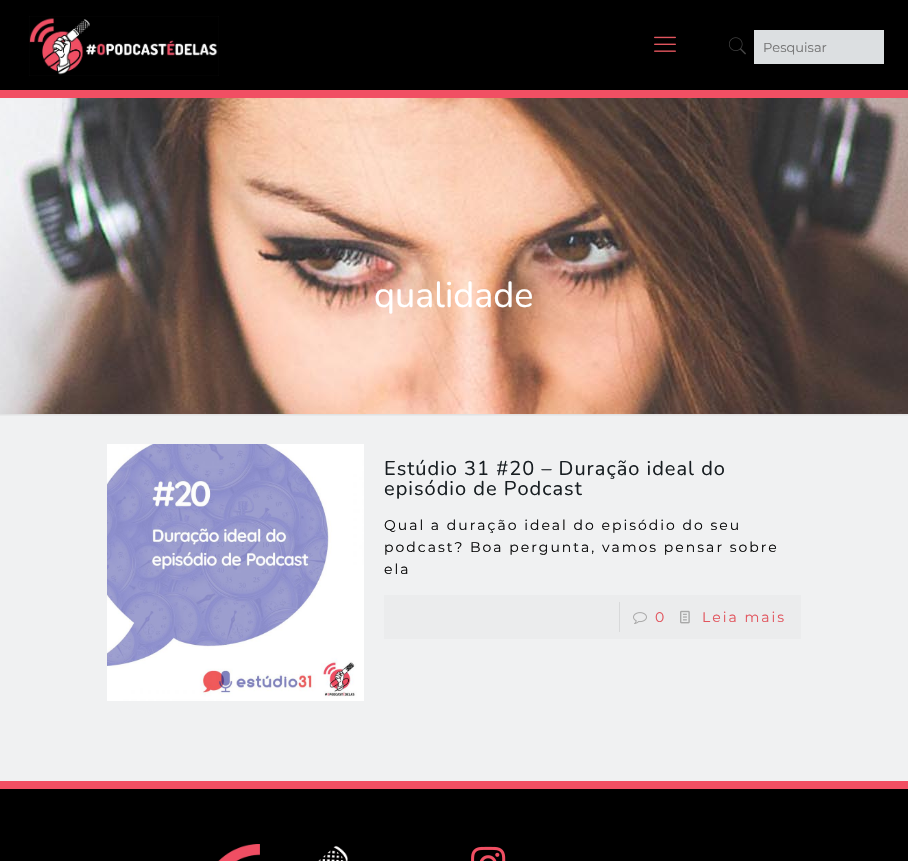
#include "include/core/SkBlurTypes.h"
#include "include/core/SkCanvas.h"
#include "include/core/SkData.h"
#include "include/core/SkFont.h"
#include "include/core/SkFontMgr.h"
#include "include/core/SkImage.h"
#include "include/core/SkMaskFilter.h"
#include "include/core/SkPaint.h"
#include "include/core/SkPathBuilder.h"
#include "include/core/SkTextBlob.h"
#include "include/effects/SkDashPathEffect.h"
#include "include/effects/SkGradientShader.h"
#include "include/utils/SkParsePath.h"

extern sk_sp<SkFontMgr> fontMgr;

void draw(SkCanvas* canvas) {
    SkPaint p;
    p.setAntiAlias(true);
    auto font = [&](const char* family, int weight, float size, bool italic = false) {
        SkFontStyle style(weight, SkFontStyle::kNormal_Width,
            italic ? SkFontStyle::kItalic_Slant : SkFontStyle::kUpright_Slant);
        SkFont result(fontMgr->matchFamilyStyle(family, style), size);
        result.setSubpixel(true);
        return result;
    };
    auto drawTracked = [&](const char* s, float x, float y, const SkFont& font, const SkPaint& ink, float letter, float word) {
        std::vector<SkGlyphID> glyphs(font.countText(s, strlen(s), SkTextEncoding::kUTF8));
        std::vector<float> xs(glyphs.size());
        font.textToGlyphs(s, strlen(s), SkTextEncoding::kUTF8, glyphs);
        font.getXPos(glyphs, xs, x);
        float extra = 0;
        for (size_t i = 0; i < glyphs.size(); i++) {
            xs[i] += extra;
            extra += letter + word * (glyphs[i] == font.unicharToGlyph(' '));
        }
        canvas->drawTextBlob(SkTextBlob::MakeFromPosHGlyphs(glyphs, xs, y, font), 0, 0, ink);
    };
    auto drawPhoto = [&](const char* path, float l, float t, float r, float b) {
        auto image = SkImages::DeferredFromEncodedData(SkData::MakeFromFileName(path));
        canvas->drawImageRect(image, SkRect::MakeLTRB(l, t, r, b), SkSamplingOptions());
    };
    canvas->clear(0xFFF0F1F2);
    drawPhoto("media/1.png", 0, 98, 908, 414);
    p.setColor(0xFF000000);
    canvas->drawRect(SkRect::MakeLTRB(0, 0, 908, 90), p);
    p.setColor(0xFFF14F63);
    canvas->drawRect(SkRect::MakeLTRB(0, 90, 908, 98), p);
    drawPhoto("media/2.png", 29, 16, 219, 76);
    drawPhoto("media/3.png", 654, 36, 676, 52);
    drawPhoto("media/4.png", 729, 37, 746, 55);
    p.setColor(0xFFDCDFE1);
    canvas->drawRect(SkRect::MakeLTRB(754, 30, 884, 64), p);
    auto font1 = font("Montserrat", 400, 13);
    p.setColor(0xFF757575);
    canvas->drawString("Pesquisar", 763, 52, font1, p);
    auto font2 = font("Nunito", 400, 36);
    p.setColor(0xFFFFFFFF);
    canvas->drawString("qualidade", 374, 307, font2, p);
    drawPhoto("media/5.png", 0, 414, 908, 416);
    drawPhoto("media/6.png", 107, 444, 364, 701);
    auto font3 = font("Nunito", 400, 20);
    p.setColor(0xFF181E22);
    drawTracked("Estúdio 31 #20 – Duração ideal do", 384, 475, font3, p, 1, 0);
    drawTracked("episódio de Podcast", 384, 495, font3, p, 1, 0);
    auto font4 = font("Montserrat", 400, 14);
    p.setColor(0xFF0A0A0A);
    {
        const struct { const char* s; float x, y; } items[] = {
            {"Qual a duração ideal do episódio do seu", 384, 530},
            {"podcast? Boa pergunta, vamos pensar sobre", 384, 552},
            {"ela", 384, 574},
        };
        for (auto [s, x, y] : items) {
            drawTracked(s, x, y, font4, p, 2, 0);
        }
    }
    p.setColor(0xFFEBECED);
    canvas->drawRect(SkRect::MakeLTRB(384, 595, 801, 639), p);
    p.setColor(0xFFD8D9DA);
    canvas->drawRect(SkRect::MakeLTRB(619, 602, 620, 632), p);
    drawPhoto("media/7.png", 633, 612, 647, 624);
    p.setColor(0xFFE2555E);
    drawTracked("0", 655, 622, font4, p, 2, 0);
    drawPhoto("media/8.png", 680, 610, 690, 624);
    drawTracked("Leia mais", 702, 622, font4, p, 2, 0);
    p.setColor(0xFF000000);
    canvas->drawRect(SkRect::MakeLTRB(0, 789, 908, 861), p);
    p.setColor(0xFFF14F63);
    canvas->drawRect(SkRect::MakeLTRB(0, 781, 908, 789), p);
    drawPhoto("media/9.png", 218, 844, 348, 861);
    drawPhoto("media/10.png", 471, 846, 506, 861);
}
